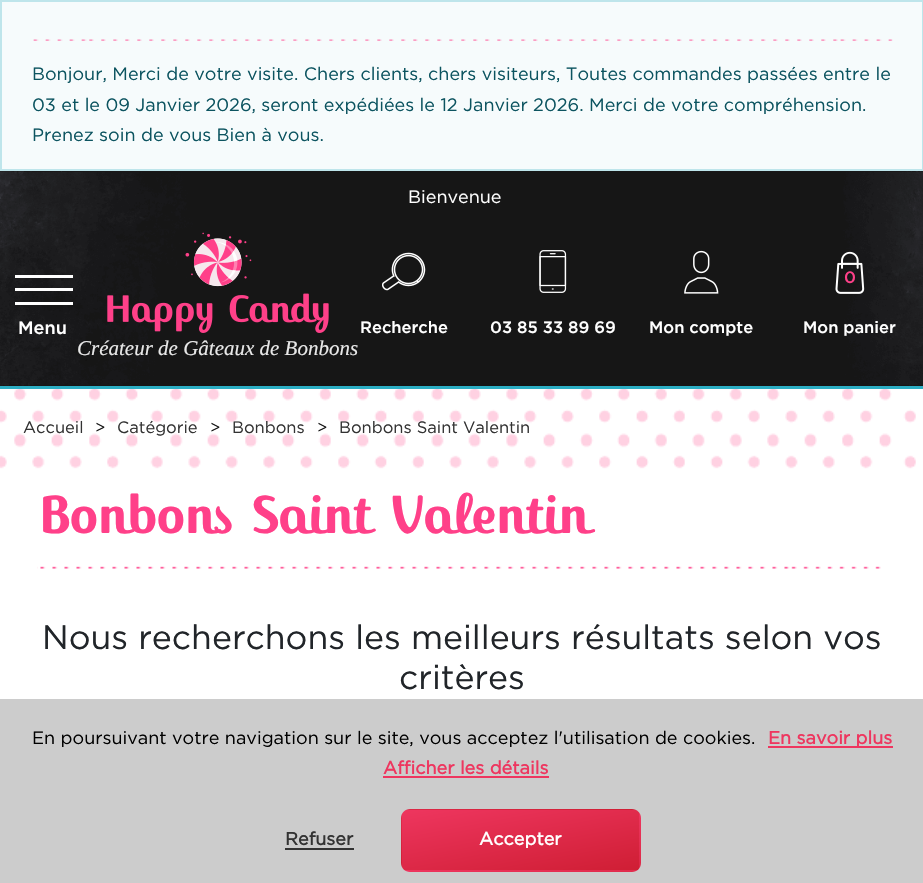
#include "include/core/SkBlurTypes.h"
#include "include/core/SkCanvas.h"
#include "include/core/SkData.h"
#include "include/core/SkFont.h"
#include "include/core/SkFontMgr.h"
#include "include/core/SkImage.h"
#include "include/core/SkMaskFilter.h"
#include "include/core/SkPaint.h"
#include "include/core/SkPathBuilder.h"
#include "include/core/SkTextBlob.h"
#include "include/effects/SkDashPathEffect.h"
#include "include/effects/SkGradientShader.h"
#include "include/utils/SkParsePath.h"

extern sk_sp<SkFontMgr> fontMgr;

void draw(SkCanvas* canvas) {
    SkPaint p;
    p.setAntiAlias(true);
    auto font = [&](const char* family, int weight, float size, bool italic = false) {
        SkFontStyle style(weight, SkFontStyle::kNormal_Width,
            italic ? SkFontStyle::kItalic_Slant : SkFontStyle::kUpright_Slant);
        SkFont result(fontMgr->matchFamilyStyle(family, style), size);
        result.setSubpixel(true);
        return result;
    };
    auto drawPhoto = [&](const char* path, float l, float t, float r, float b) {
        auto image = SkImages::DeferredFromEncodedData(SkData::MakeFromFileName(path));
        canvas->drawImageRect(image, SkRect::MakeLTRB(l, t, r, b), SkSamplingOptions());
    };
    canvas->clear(0xFFFFFFFF);
    p.setColor(0xFFF6FBFC);
    canvas->drawRect(SkRect::MakeLTRB(1, 1, 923, 170), p);
    p.setStyle(SkPaint::kStroke_Style);
    p.setStrokeWidth(2);
    p.setColor(0xFFBEE5EB);
    canvas->drawRect(SkRect::MakeLTRB(1, 1, 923, 170), p);
    drawPhoto("media/1.png", 33, 39, 893, 41);
    auto font1 = font("Gotham", 400, 18);
    p.setStyle(SkPaint::kFill_Style);
    p.setColor(0xFF0C5460);
    {
        const struct { const char* s; float x, y; } items[] = {
            {"Bonjour, Merci de votre visite. Chers clients, chers visiteurs, Toutes commandes passées entre le", 32, 80},
            {"03 et le 09 Janvier 2026, seront expédiées le 12 Janvier 2026. Merci de votre compréhension.", 32, 111},
            {"Prenez soin de vous Bien à vous.", 32, 141},
        };
        for (auto [s, x, y] : items) {
            canvas->drawString(s, x, y, font1, p);
        }
    }
    p.setColor(0xFF161616);
    canvas->drawRect(SkRect::MakeLTRB(0, 171, 923, 386), p);
    drawPhoto("media/2.png", 0, 171, 923, 386);
    p.setColor(0xFF2CAEC4);
    canvas->drawRect(SkRect::MakeLTRB(0, 386, 923, 389), p);
    p.setColor(0xFFFFFFFF);
    canvas->drawString("Bienvenue", 408, 203, font1, p);
    {
        const struct { float l, t, r, b; SkColor color; } items[] = {
            {15, 275, 73, 278, 0xFFFFFFFF},
            {15, 288, 73, 291, 0xFFFFFFFF},
            {15, 302, 73, 305, 0xFFFFFFFF},
        };
        for (auto [l, t, r, b, color] : items) {
            p.setColor(color);
            canvas->drawRect(SkRect::MakeLTRB(l, t, r, b), p);
        }
    }
    auto font2 = font("Gotham", 500, 18);
    canvas->drawString("Menu", 18, 334, font2, p);
    drawPhoto("media/3.png", 382, 252, 426, 291);
    auto font3 = font("Gotham", 500, 16.5f);
    canvas->drawString("Recherche", 360, 333, font3, p);
    drawPhoto("media/4.png", 539, 250, 567, 293);
    canvas->drawString("03 85 33 89 69", 490, 333, font3, p);
    drawPhoto("media/5.png", 684, 250, 719, 294);
    canvas->drawString("Mon compte", 649, 333, font3, p);
    drawPhoto("media/6.png", 835, 251, 865, 294);
    p.setColor(0xFFFF4089);
    canvas->drawString("0", 844, 283, font3, p);
    p.setColor(0xFFFFFFFF);
    canvas->drawString("Mon panier", 803, 333, font3, p);
    drawPhoto("media/7.png", 107, 232, 329, 333);
    auto font4 = font("Liberation Serif", 400, 21, true);
    p.setColor(0xFFE8E8E8);
    canvas->drawString("Créateur de Gâteaux de Bonbons", 77, 355, font4, p);
    drawPhoto("media/8.png", 0, 389, 916, 469);
    auto font5 = font("Gotham", 400, 16.5f);
    p.setColor(0xFF333333);
    canvas->drawString("Accueil", 23, 433, font5, p);
    p.setColor(0xFF161616);
    canvas->drawString(">", 95, 433, font5, p);
    p.setColor(0xFF333333);
    canvas->drawString("Catégorie", 117, 433, font5, p);
    p.setColor(0xFF161616);
    canvas->drawString(">", 210, 433, font5, p);
    p.setColor(0xFF333333);
    canvas->drawString("Bonbons", 232, 433, font5, p);
    p.setColor(0xFF161616);
    canvas->drawString(">", 317, 433, font5, p);
    p.setColor(0xFF333333);
    canvas->drawString("Bonbons Saint Valentin", 339, 433, font5, p);
    drawPhoto("media/9.png", 37, 566, 881, 569);
    auto font6 = font("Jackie", 700, 57);
    p.setColor(0xFFFF4089);
    canvas->drawString("Bonbons Saint Valentin", 38, 533, font6, p);
    auto font7 = font("Gotham", 400, 33.75f);
    p.setColor(0xFF212529);
    canvas->drawString("Nous recherchons les meilleurs résultats selon vos", 42, 649, font7, p);
    canvas->drawString("critères", 399, 689, font7, p);
    p.setColor(0xFFCCCCCC);
    canvas->drawRect(SkRect::MakeLTRB(0, 699, 923, 883), p);
    p.setColor(0xFF000000);
    canvas->drawString("En poursuivant votre navigation sur le site, vous acceptez l'utilisation de cookies.", 32, 744, font1, p);
    p.setColor(0xFFEE365F);
    canvas->drawRect(SkRect::MakeLTRB(768, 746, 893, 748), p);
    auto font8 = font("Gotham", 700, 18);
    canvas->drawString("En savoir plus", 768, 744, font8, p);
    canvas->drawString("Afficher les détails", 383, 774, font8, p);
    canvas->drawRect(SkRect::MakeLTRB(383, 776, 549, 778), p);
    p.setColor(0xFF333333);
    canvas->drawString("Refuser", 285, 845, font8, p);
    canvas->drawRect(SkRect::MakeLTRB(285, 848, 354, 850), p);
    canvas->save();
    canvas->clipPath(SkPathBuilder().moveTo(410, 809).lineTo(632, 809).cubicTo(637, 809, 641, 813, 641, 818).lineTo(641, 863).cubicTo(641, 868, 637, 872, 632, 872).lineTo(410, 872).cubicTo(405, 872, 401, 868, 401, 863).lineTo(401, 818).cubicTo(401, 813, 405, 809, 410, 809).close().detach(), true);
    {
        const SkColor colors[] = {0xFFCF1E34, 0xFFEE365F};
        const float stops[] = {0, 1};
        const SkPoint ends[] = {{530, 831}, {511, 729}};
        p.setShader(SkGradientShader::MakeLinear(ends, colors, stops, 2, SkTileMode::kClamp));
        p.setAlpha(255);
    }
    canvas->drawRect(SkRect::MakeLTRB(402, 809, 639, 810), p);
    {
        const SkColor colors[] = {0xFFCF1E34, 0xFFEE365F};
        const float stops[] = {0, 1};
        const SkPoint ends[] = {{293, 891}, {274, 789}};
        p.setShader(SkGradientShader::MakeLinear(ends, colors, stops, 2, SkTileMode::kClamp));
        p.setAlpha(255);
    }
    canvas->drawRect(SkRect::MakeLTRB(401, 810, 402, 870), p);
    {
        const SkColor colors[] = {0xFFCF1E34, 0xFFEE365F};
        const float stops[] = {0, 1};
        const SkPoint ends[] = {{530, 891}, {511, 789}};
        p.setShader(SkGradientShader::MakeLinear(ends, colors, stops, 2, SkTileMode::kClamp));
        p.setAlpha(255);
    }
    canvas->drawRect(SkRect::MakeLTRB(402, 810, 639, 870), p);
    {
        const SkColor colors[] = {0xFFCF1E34, 0xFFEE365F};
        const float stops[] = {0, 1};
        const SkPoint ends[] = {{767, 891}, {748, 789}};
        p.setShader(SkGradientShader::MakeLinear(ends, colors, stops, 2, SkTileMode::kClamp));
        p.setAlpha(255);
    }
    canvas->drawRect(SkRect::MakeLTRB(639, 810, 641, 870), p);
    {
        const SkColor colors[] = {0xFFCF1E34, 0xFFEE365F};
        const float stops[] = {0, 1};
        const SkPoint ends[] = {{530, 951}, {511, 849}};
        p.setShader(SkGradientShader::MakeLinear(ends, colors, stops, 2, SkTileMode::kClamp));
        p.setAlpha(255);
    }
    canvas->drawRect(SkRect::MakeLTRB(402, 870, 639, 872), p);
    canvas->restore();
    p.setShader(nullptr);
    p.setColor(0xFFFFFFFF);
    canvas->drawString("Accepter", 479, 845, font8, p);
}
